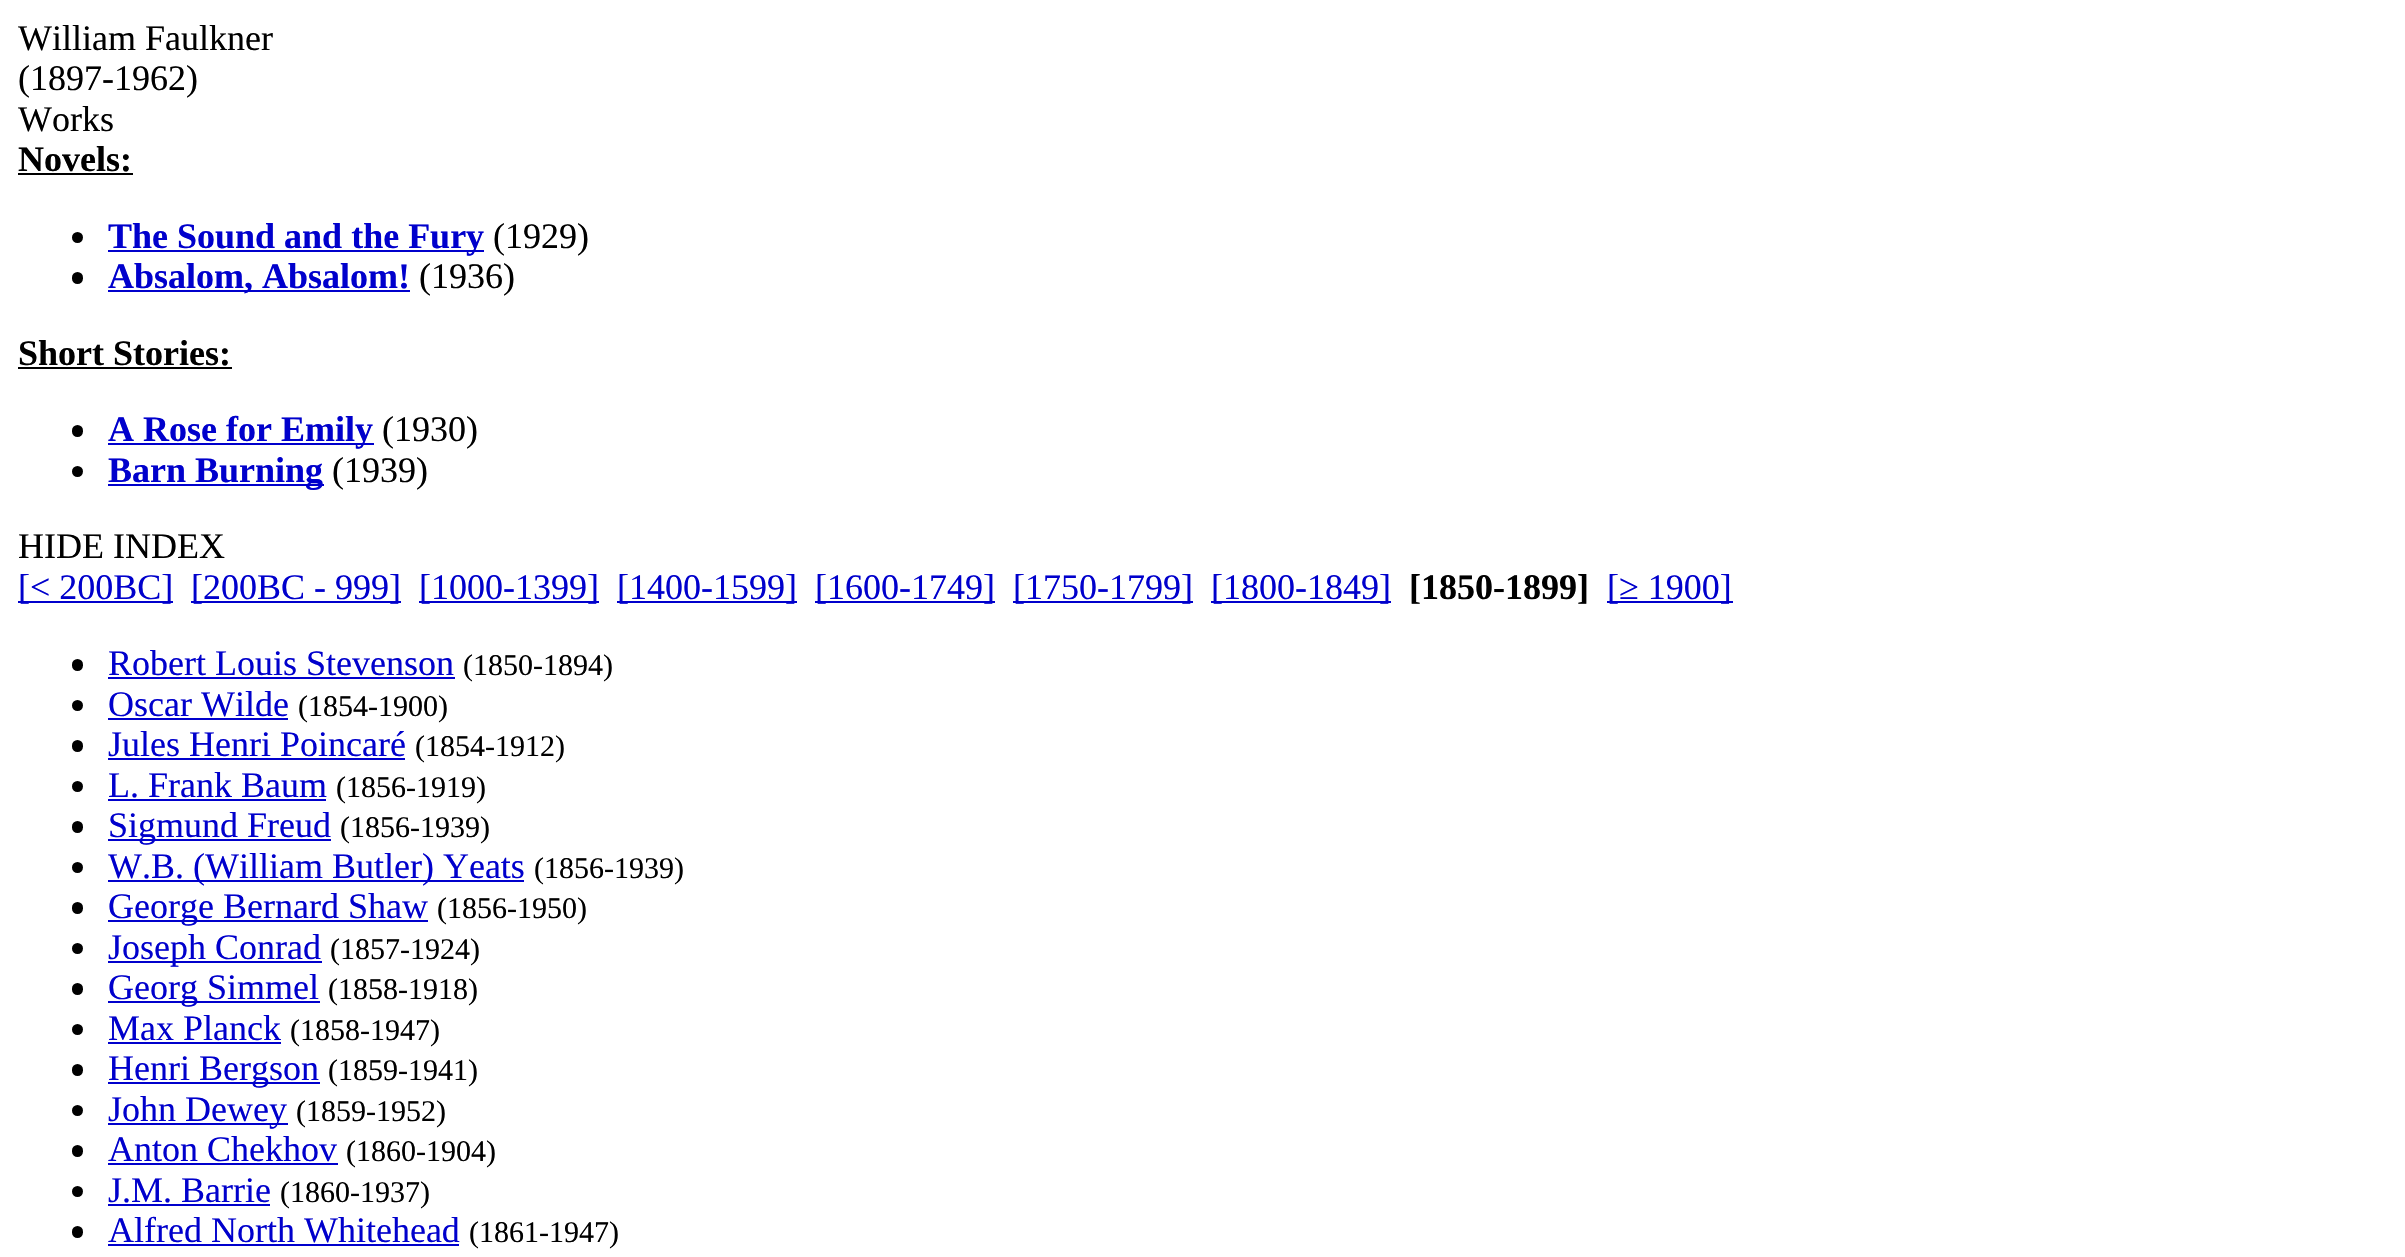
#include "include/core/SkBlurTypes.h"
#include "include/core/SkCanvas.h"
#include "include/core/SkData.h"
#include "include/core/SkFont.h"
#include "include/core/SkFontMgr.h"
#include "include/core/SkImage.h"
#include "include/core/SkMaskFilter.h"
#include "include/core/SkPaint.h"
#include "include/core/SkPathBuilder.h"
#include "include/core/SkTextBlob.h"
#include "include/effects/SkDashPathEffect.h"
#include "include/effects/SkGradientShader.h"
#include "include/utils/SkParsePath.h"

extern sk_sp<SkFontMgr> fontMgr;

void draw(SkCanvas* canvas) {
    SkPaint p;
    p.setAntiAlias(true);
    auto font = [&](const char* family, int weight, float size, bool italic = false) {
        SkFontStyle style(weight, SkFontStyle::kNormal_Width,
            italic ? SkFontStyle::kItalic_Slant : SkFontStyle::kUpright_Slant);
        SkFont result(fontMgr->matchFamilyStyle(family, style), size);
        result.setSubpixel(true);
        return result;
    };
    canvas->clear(0xFFFFFFFF);
    auto font1 = font("Liberation Serif", 400, 36);
    p.setColor(0xFF000000);
    {
        const struct { const char* s; float x, y; } items[] = {
            {"William Faulkner", 18, 50},
            {"(1897-1962)", 18, 90},
            {"Works", 18, 131},
        };
        for (auto [s, x, y] : items) {
            canvas->drawString(s, x, y, font1, p);
        }
    }
    auto font2 = font("Liberation Serif", 700, 36);
    canvas->drawString("Novels:", 18, 171, font2, p);
    canvas->drawRect(SkRect::MakeLTRB(18, 173, 133, 175), p);
    canvas->drawCircle(77.5f, 237.5f, 5.5f, p);
    p.setColor(0xFF0000CC);
    canvas->drawRect(SkRect::MakeLTRB(108, 250, 484, 252), p);
    canvas->drawString("The Sound and the Fury", 108, 248, font2, p);
    p.setColor(0xFF000000);
    canvas->drawString("(1929)", 493, 248, font1, p);
    canvas->drawRoundRect(SkRect::MakeLTRB(72, 272, 83, 284), 5.5f, 5.5f, p);
    p.setColor(0xFF0000CC);
    canvas->drawRect(SkRect::MakeLTRB(108, 290, 410, 292), p);
    canvas->drawString("Absalom, Absalom!", 108, 288, font2, p);
    p.setColor(0xFF000000);
    canvas->drawString("(1936)", 419, 288, font1, p);
    canvas->drawString("Short Stories:", 18, 365, font2, p);
    canvas->drawRect(SkRect::MakeLTRB(18, 367, 232, 369), p);
    canvas->drawRoundRect(SkRect::MakeLTRB(72, 425, 83, 437), 5.5f, 5.5f, p);
    p.setColor(0xFF0000CC);
    canvas->drawRect(SkRect::MakeLTRB(108, 443, 374, 445), p);
    canvas->drawString("A Rose for Emily", 108, 441, font2, p);
    p.setColor(0xFF000000);
    canvas->drawString("(1930)", 382, 441, font1, p);
    canvas->drawCircle(77.5f, 471.5f, 5.5f, p);
    p.setColor(0xFF0000CC);
    canvas->drawRect(SkRect::MakeLTRB(108, 484, 324, 486), p);
    canvas->drawString("Barn Burning", 108, 482, font2, p);
    p.setColor(0xFF000000);
    canvas->drawString("(1939)", 332, 482, font1, p);
    canvas->drawString("HIDE INDEX", 18, 558, font1, p);
    p.setColor(0xFF0000CC);
    canvas->drawRect(SkRect::MakeLTRB(18, 601, 173, 603), p);
    canvas->drawString("[< 200BC]", 18, 599, font1, p);
    canvas->drawRect(SkRect::MakeLTRB(191, 601, 401, 603), p);
    canvas->drawString("[200BC - 999]", 191, 599, font1, p);
    canvas->drawRect(SkRect::MakeLTRB(419, 601, 599, 603), p);
    canvas->drawString("[1000-1399]", 419, 599, font1, p);
    canvas->drawRect(SkRect::MakeLTRB(617, 601, 797, 603), p);
    canvas->drawString("[1400-1599]", 617, 599, font1, p);
    canvas->drawRect(SkRect::MakeLTRB(815, 601, 995, 603), p);
    canvas->drawString("[1600-1749]", 815, 599, font1, p);
    canvas->drawRect(SkRect::MakeLTRB(1013, 601, 1193, 603), p);
    canvas->drawString("[1750-1799]", 1013, 599, font1, p);
    canvas->drawRect(SkRect::MakeLTRB(1211, 601, 1391, 603), p);
    canvas->drawString("[1800-1849]", 1211, 599, font1, p);
    p.setColor(0xFF000000);
    canvas->drawString("[1850-1899]", 1409, 599, font2, p);
    p.setColor(0xFF0000CC);
    canvas->drawRect(SkRect::MakeLTRB(1607, 601, 1733, 603), p);
    canvas->drawString("[≥ 1900]", 1607, 599, font1, p);
    p.setColor(0xFF000000);
    canvas->drawRoundRect(SkRect::MakeLTRB(72, 659, 83, 671), 5.5f, 5.5f, p);
    p.setColor(0xFF0000CC);
    canvas->drawString("Robert Louis Stevenson", 108, 675, font1, p);
    canvas->drawRect(SkRect::MakeLTRB(108, 677, 455, 679), p);
    auto font3 = font("Liberation Serif", 400, 30);
    p.setColor(0xFF000000);
    canvas->drawString("(1850-1894)", 463, 675, font3, p);
    canvas->drawCircle(77.5f, 705.5f, 5.5f, p);
    p.setColor(0xFF0000CC);
    canvas->drawString("Oscar Wilde", 108, 716, font1, p);
    canvas->drawRect(SkRect::MakeLTRB(108, 718, 288, 720), p);
    p.setColor(0xFF000000);
    canvas->drawString("(1854-1900)", 298, 716, font3, p);
    canvas->drawRoundRect(SkRect::MakeLTRB(72, 740, 83, 752), 5.5f, 5.5f, p);
    p.setColor(0xFF0000CC);
    canvas->drawString("Jules Henri Poincaré", 108, 756, font1, p);
    canvas->drawRect(SkRect::MakeLTRB(108, 758, 405, 760), p);
    p.setColor(0xFF000000);
    canvas->drawString("(1854-1912)", 415, 756, font3, p);
    canvas->drawCircle(77.5f, 786.5f, 5.5f, p);
    p.setColor(0xFF0000CC);
    canvas->drawString("L. Frank Baum", 108, 797, font1, p);
    canvas->drawRect(SkRect::MakeLTRB(108, 799, 326, 801), p);
    p.setColor(0xFF000000);
    canvas->drawString("(1856-1919)", 336, 797, font3, p);
    canvas->drawRoundRect(SkRect::MakeLTRB(72, 821, 83, 833), 5.5f, 5.5f, p);
    p.setColor(0xFF0000CC);
    canvas->drawRect(SkRect::MakeLTRB(108, 839, 331, 841), p);
    canvas->drawString("Sigmund Freud", 108, 837, font1, p);
    p.setColor(0xFF000000);
    canvas->drawString("(1856-1939)", 340, 837, font3, p);
    canvas->drawCircle(77.5f, 867.5f, 5.5f, p);
    p.setColor(0xFF0000CC);
    canvas->drawRect(SkRect::MakeLTRB(108, 880, 524, 882), p);
    canvas->drawString("W.B. (William Butler) Yeats", 108, 878, font1, p);
    p.setColor(0xFF000000);
    canvas->drawString("(1856-1939)", 534, 878, font3, p);
    canvas->drawRoundRect(SkRect::MakeLTRB(72, 902, 83, 914), 5.5f, 5.5f, p);
    p.setColor(0xFF0000CC);
    canvas->drawRect(SkRect::MakeLTRB(108, 920, 428, 922), p);
    canvas->drawString("George Bernard Shaw", 108, 918, font1, p);
    p.setColor(0xFF000000);
    canvas->drawString("(1856-1950)", 437, 918, font3, p);
    canvas->drawCircle(77.5f, 948.5f, 5.5f, p);
    p.setColor(0xFF0000CC);
    canvas->drawRect(SkRect::MakeLTRB(108, 961, 322, 963), p);
    canvas->drawString("Joseph Conrad", 108, 959, font1, p);
    p.setColor(0xFF000000);
    canvas->drawString("(1857-1924)", 330, 959, font3, p);
    canvas->drawRoundRect(SkRect::MakeLTRB(72, 983, 83, 995), 5.5f, 5.5f, p);
    p.setColor(0xFF0000CC);
    canvas->drawRect(SkRect::MakeLTRB(108, 1001, 320, 1003), p);
    canvas->drawString("Georg Simmel", 108, 999, font1, p);
    p.setColor(0xFF000000);
    canvas->drawString("(1858-1918)", 328, 999, font3, p);
    canvas->drawCircle(77.5f, 1029.5f, 5.5f, p);
    p.setColor(0xFF0000CC);
    canvas->drawString("Max Planck", 108, 1040, font1, p);
    canvas->drawRect(SkRect::MakeLTRB(108, 1042, 281, 1044), p);
    p.setColor(0xFF000000);
    canvas->drawString("(1858-1947)", 290, 1040, font3, p);
    canvas->drawRoundRect(SkRect::MakeLTRB(72, 1064, 83, 1076), 5.5f, 5.5f, p);
    p.setColor(0xFF0000CC);
    canvas->drawRect(SkRect::MakeLTRB(108, 1082, 320, 1084), p);
    canvas->drawString("Henri Bergson", 108, 1080, font1, p);
    p.setColor(0xFF000000);
    canvas->drawString("(1859-1941)", 328, 1080, font3, p);
    canvas->drawCircle(77.5f, 1110.5f, 5.5f, p);
    p.setColor(0xFF0000CC);
    canvas->drawRect(SkRect::MakeLTRB(108, 1123, 288, 1125), p);
    canvas->drawString("John Dewey", 108, 1121, font1, p);
    p.setColor(0xFF000000);
    canvas->drawString("(1859-1952)", 296, 1121, font3, p);
    canvas->drawRoundRect(SkRect::MakeLTRB(72, 1145, 83, 1157), 5.5f, 5.5f, p);
    p.setColor(0xFF0000CC);
    canvas->drawString("Anton Chekhov", 108, 1161, font1, p);
    canvas->drawRect(SkRect::MakeLTRB(108, 1163, 338, 1165), p);
    p.setColor(0xFF000000);
    canvas->drawString("(1860-1904)", 346, 1161, font3, p);
    canvas->drawCircle(77.5f, 1191.5f, 5.5f, p);
    p.setColor(0xFF0000CC);
    canvas->drawString("J.M. Barrie", 108, 1202, font1, p);
    canvas->drawRect(SkRect::MakeLTRB(108, 1204, 270, 1206), p);
    p.setColor(0xFF000000);
    canvas->drawString("(1860-1937)", 280, 1202, font3, p);
    canvas->drawRoundRect(SkRect::MakeLTRB(72, 1226, 83, 1238), 5.5f, 5.5f, p);
    p.setColor(0xFF0000CC);
    canvas->drawString("Alfred North Whitehead", 108, 1242, font1, p);
    canvas->drawRect(SkRect::MakeLTRB(108, 1244, 459, 1246), p);
    p.setColor(0xFF000000);
    canvas->drawString("(1861-1947)", 469, 1242, font3, p);
}
